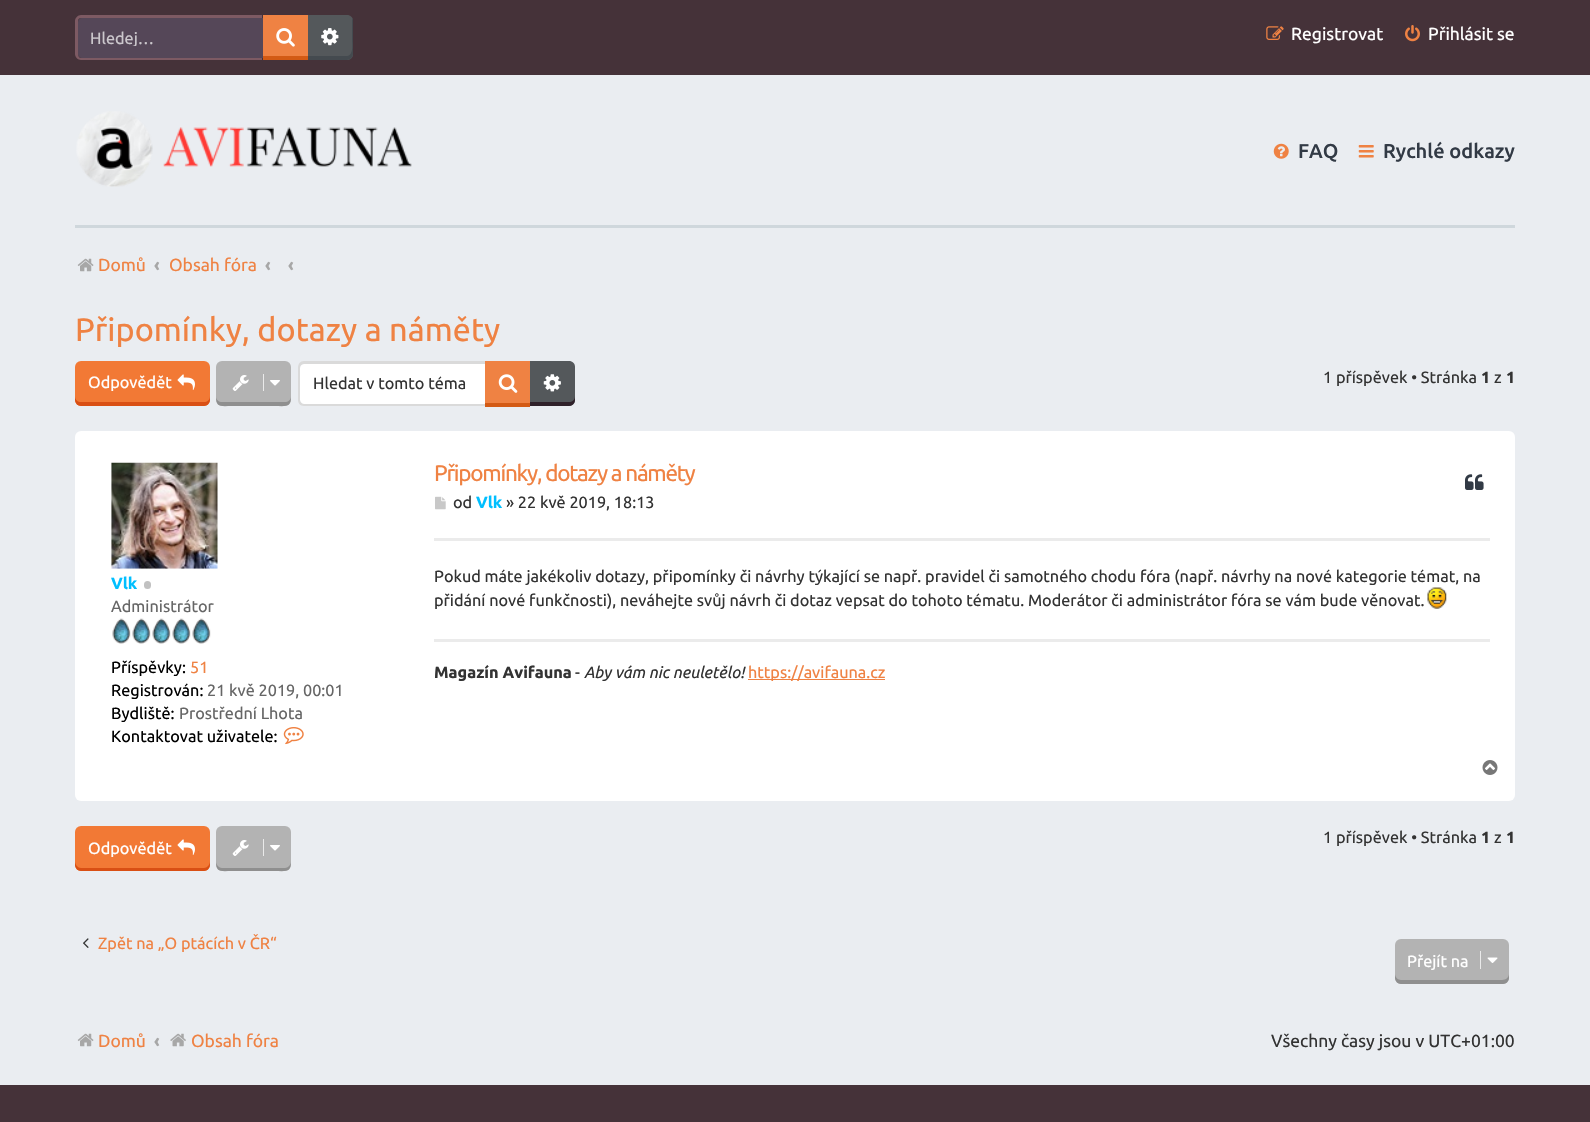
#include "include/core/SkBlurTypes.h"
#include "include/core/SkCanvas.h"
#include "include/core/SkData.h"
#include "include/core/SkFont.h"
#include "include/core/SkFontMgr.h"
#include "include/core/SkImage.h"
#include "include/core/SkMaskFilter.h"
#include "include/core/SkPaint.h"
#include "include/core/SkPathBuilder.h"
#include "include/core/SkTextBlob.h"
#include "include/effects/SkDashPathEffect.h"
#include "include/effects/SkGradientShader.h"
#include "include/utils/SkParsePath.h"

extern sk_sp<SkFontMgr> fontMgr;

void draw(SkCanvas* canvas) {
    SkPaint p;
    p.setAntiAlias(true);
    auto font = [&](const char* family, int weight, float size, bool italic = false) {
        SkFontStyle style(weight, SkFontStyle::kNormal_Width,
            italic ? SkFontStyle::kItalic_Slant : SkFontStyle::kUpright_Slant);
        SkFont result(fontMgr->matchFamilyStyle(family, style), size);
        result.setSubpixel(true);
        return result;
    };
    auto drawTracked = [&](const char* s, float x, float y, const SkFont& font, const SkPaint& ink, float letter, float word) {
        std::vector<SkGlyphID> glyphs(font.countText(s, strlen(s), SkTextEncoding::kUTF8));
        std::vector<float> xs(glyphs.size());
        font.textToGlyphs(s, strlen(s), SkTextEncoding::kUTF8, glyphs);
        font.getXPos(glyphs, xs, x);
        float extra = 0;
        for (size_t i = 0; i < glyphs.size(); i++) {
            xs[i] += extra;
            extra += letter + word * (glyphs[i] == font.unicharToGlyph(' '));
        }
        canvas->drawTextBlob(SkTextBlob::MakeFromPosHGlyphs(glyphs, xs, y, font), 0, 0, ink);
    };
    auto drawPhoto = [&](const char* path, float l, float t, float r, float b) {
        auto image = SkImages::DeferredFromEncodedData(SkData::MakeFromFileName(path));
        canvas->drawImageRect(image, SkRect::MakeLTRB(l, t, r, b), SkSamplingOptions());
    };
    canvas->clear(0xFFEAEDF1);
    p.setColor(0xFF453239);
    canvas->drawRect(SkRect::MakeLTRB(0, 0, 1590, 75), p);
    p.setColor(0xFF554758);
    canvas->drawPath(SkPathBuilder().moveTo(82, 18).lineTo(263, 18).lineTo(263, 58).lineTo(82, 58).cubicTo(80, 58, 78, 56, 78, 54).lineTo(78, 22).cubicTo(78, 20, 80, 18, 82, 18).close().detach(), p);
    p.setColor(0xFF7D5A63);
    canvas->drawPath(SkPathBuilder(SkPathFillType::kEvenOdd).moveTo(81, 15).lineTo(262, 15).lineTo(262, 60).lineTo(81, 60).cubicTo(78, 60, 75, 57, 75, 54).lineTo(75, 21).cubicTo(75, 18, 78, 15, 81, 15).close().moveTo(81, 18).lineTo(262, 18).lineTo(262, 58).lineTo(81, 58).cubicTo(79, 58, 78, 56, 78, 54).lineTo(78, 21).cubicTo(78, 19, 79, 18, 81, 18).close().detach(), p);
    canvas->save();
    canvas->clipRect(SkRect::MakeLTRB(90, 29, 250, 46));
    auto font1 = font("Ubuntu", 400, 16.25f);
    p.setColor(0xFFCCC8CD);
    canvas->drawString("Hledej…", 90, 44, font1, p);
    canvas->restore();
    p.setColor(0xFFEF8243);
    canvas->drawRect(SkRect::MakeLTRB(263, 15, 308, 56), p);
    p.setColor(0xFFD35A14);
    canvas->drawRect(SkRect::MakeLTRB(263, 56, 308, 60), p);
    drawPhoto("media/1.png", 276, 28, 295, 47);
    p.setColor(0xFF54585B);
    canvas->drawPath(SkPathBuilder().moveTo(308, 15).lineTo(347, 15).cubicTo(350.5f, 15, 353, 17.5f, 353, 21).lineTo(353, 54).cubicTo(353, 57.5f, 350.5f, 60, 347, 60).lineTo(308, 60).close().detach(), p);
    p.setColor(0xFF444A4F);
    canvas->drawPath(SkPathBuilder().moveTo(308, 56).lineTo(308, 60).lineTo(347, 60).cubicTo(350, 60, 353, 57, 353, 54).lineTo(353, 21).cubicTo(353, 20, 353, 19, 352, 18).lineTo(352, 39).cubicTo(352, 44, 354, 55, 347, 56).close().detach(), p);
    drawPhoto("media/2.png", 321, 28, 339, 46);
    drawPhoto("media/3.png", 1266, 26, 1284, 40);
    auto font2 = font("Ubuntu", 400, 17.5f);
    p.setColor(0xFFFFFFFF);
    canvas->drawString("Registrovat", 1291, 40, font2, p);
    drawPhoto("media/4.png", 1405, 25, 1420, 42);
    canvas->drawString("Přihlásit se", 1428, 40, font2, p);
    drawPhoto("media/5.png", 76, 111, 412, 187);
    drawPhoto("media/6.png", 1273, 143, 1289, 159);
    auto font3 = font("Ubuntu", 500, 20);
    p.setColor(0xFF323A45);
    canvas->drawString("FAQ", 1298, 158, font3, p);
    drawPhoto("media/7.png", 1358, 145, 1374, 158);
    canvas->drawString("Rychlé odkazy", 1383, 158, font3, p);
    p.setColor(0xFFCFD7DC);
    canvas->drawRect(SkRect::MakeLTRB(75, 225, 1515, 228), p);
    drawPhoto("media/8.png", 77, 258, 94, 272);
    p.setColor(0xFFEF8243);
    canvas->drawString("Domů", 98, 271, font2, p);
    auto font4 = font("Ubuntu", 700, 17.5f);
    p.setColor(0xFFA7A7A7);
    canvas->drawString("‹", 154, 271, font4, p);
    p.setColor(0xFFEF8243);
    canvas->drawString("Obsah fóra", 169, 271, font2, p);
    p.setColor(0xFFA7A7A7);
    canvas->drawString("‹", 265, 271, font4, p);
    canvas->drawString("‹", 288, 271, font4, p);
    auto font5 = font("Ubuntu", 400, 32.5f);
    p.setColor(0xFFEF8243);
    canvas->drawString("Připomínky, dotazy a náměty", 75, 341, font5, p);
    p.setColor(0xFFF27935);
    canvas->drawRoundRect(SkRect::MakeLTRB(75, 361, 210, 406), 6, 6, p);
    p.setColor(0xFFD94F14);
    canvas->drawPath(SkPathBuilder().moveTo(75, 396).lineTo(75, 400).cubicTo(75, 403, 78, 406, 81, 406).lineTo(204, 406).cubicTo(207, 406, 210, 403, 210, 400).lineTo(210, 396).cubicTo(210, 400, 207, 402, 204, 402).lineTo(81, 402).cubicTo(78, 402, 75, 400, 75, 396).close().detach(), p);
    p.setColor(0xFFFFFFFF);
    canvas->drawString("Odpovědět", 88, 388, font1, p);
    drawPhoto("media/9.png", 177, 374, 195, 390);
    p.setColor(0xFFB3B3B3);
    canvas->drawRoundRect(SkRect::MakeLTRB(216, 361, 291, 406), 6, 6, p);
    p.setColor(0xFF8F8F8F);
    canvas->drawPath(SkPathBuilder().moveTo(216, 396).cubicTo(216, 408, 221, 406, 232, 406).lineTo(274, 406).cubicTo(286, 406, 291, 408, 291, 396).cubicTo(291, 400, 288, 402, 285, 402).lineTo(222, 402).cubicTo(219, 402, 216, 400, 216, 396).close().detach(), p);
    drawPhoto("media/10.png", 232, 375, 249, 391);
    p.setColor(0xFFEAEAEA);
    canvas->drawRect(SkRect::MakeLTRB(263, 374, 264, 391), p);
    drawPhoto("media/11.png", 270, 380, 280, 386);
    p.setColor(0xFFFFFFFF);
    canvas->drawPath(SkPathBuilder().moveTo(304, 364).lineTo(485, 364).lineTo(485, 404).lineTo(304, 404).cubicTo(302, 404, 300, 402, 300, 400).lineTo(300, 368).cubicTo(300, 366, 302, 364, 304, 364).close().detach(), p);
    p.setColor(0xFFDADADA);
    canvas->drawPath(SkPathBuilder(SkPathFillType::kEvenOdd).moveTo(304, 361).lineTo(485, 361).lineTo(485, 406).lineTo(304, 406).cubicTo(300, 406, 298, 403, 298, 400).lineTo(298, 368).cubicTo(298, 364, 300, 361, 304, 361).close().moveTo(304, 364).lineTo(485, 364).lineTo(485, 404).lineTo(304, 404).cubicTo(302, 404, 300, 402, 300, 400).lineTo(300, 368).cubicTo(300, 365, 302, 364, 304, 364).close().detach(), p);
    p.setColor(0xFF333333);
    canvas->drawString("Hledat v tomto téma", 313, 389, font1, p);
    p.setColor(0xFFEF8243);
    canvas->drawRect(SkRect::MakeLTRB(485, 361, 530, 403), p);
    p.setColor(0xFFD35A14);
    canvas->drawRect(SkRect::MakeLTRB(485, 403, 530, 407), p);
    drawPhoto("media/12.png", 498, 374, 518, 393);
    p.setColor(0xFF54585B);
    canvas->drawPath(SkPathBuilder().moveTo(530, 361).lineTo(569, 361).cubicTo(572.5f, 361, 575, 363.5f, 575, 367).lineTo(575, 400).cubicTo(575, 403.5f, 572.5f, 406, 569, 406).lineTo(530, 406).close().detach(), p);
    p.setColor(0xFF30212A);
    canvas->drawPath(SkPathBuilder().moveTo(530, 402).lineTo(530, 406).lineTo(569, 406).cubicTo(572, 406, 575, 403, 575, 400).lineTo(575, 396).cubicTo(575, 400, 572, 402, 569, 402).close().detach(), p);
    drawPhoto("media/13.png", 543, 374, 561, 392);
    p.setColor(0xFF333333);
    canvas->drawString("1 příspěvek • Stránka", 1323, 383, font1, p);
    auto font6 = font("Ubuntu", 700, 16.25f);
    canvas->drawString("1", 1481, 383, font6, p);
    canvas->drawString("z", 1494, 383, font1, p);
    canvas->drawString("1", 1506, 383, font6, p);
    p.setColor(0xFFFFFFFF);
    canvas->drawRoundRect(SkRect::MakeLTRB(75, 431, 1515, 801), 6, 6, p);
    drawPhoto("media/14.png", 111, 462, 218, 569);
    p.setColor(0xFF00BFFF);
    canvas->drawString("Vlk", 111, 589, font6, p);
    p.setColor(0xFFC1C1C1);
    canvas->drawRoundRect(SkRect::MakeLTRB(144, 581, 151, 589), 3.5f, 3.5f, p);
    p.setColor(0xFF666666);
    canvas->drawString("Administrátor", 111, 612, font1, p);
    drawPhoto("media/15.png", 112, 618, 211, 644);
    p.setColor(0xFF000000);
    canvas->drawString("Příspěvky:", 111, 673, font1, p);
    p.setColor(0xFFEF8243);
    canvas->drawString("51", 190, 673, font1, p);
    p.setColor(0xFF000000);
    canvas->drawString("Registrován:", 111, 696, font1, p);
    p.setColor(0xFF666666);
    canvas->drawString("21 kvě 2019, 00:01", 207, 696, font1, p);
    p.setColor(0xFF000000);
    canvas->drawString("Bydliště:", 111, 719, font1, p);
    p.setColor(0xFF666666);
    canvas->drawString("Prostřední Lhota", 179, 719, font1, p);
    p.setColor(0xFF000000);
    canvas->drawString("Kontaktovat uživatele:", 111, 742, font1, p);
    drawPhoto("media/16.png", 283, 727, 304, 745);
    auto font7 = font("Ubuntu", 400, 22.5f);
    p.setColor(0xFFEF8243);
    drawTracked("Připomínky, dotazy a náměty", 434, 481, font7, p, -1.25f, 0);
    drawPhoto("media/17.png", 1465, 474, 1484, 490);
    drawPhoto("media/18.png", 435, 496, 446, 510);
    p.setColor(0xFF333333);
    canvas->drawString("od", 453, 508, font1, p);
    p.setColor(0xFF00BFFF);
    canvas->drawString("Vlk", 476, 508, font6, p);
    p.setColor(0xFF333333);
    canvas->drawString("» 22 kvě 2019, 18:13", 506, 508, font1, p);
    p.setColor(0xFFEBEBEB);
    canvas->drawRect(SkRect::MakeLTRB(434, 538, 1490, 541), p);
    p.setColor(0xFF333333);
    canvas->drawString("Pokud máte jakékoliv dotazy, připomínky či návrhy týkající se např. pravidel či samotného chodu fóra (např. návrhy na nové kategorie témat, na", 434, 582, font1, p);
    canvas->drawString("přidání nové funkčnosti), neváhejte svůj návrh či dotaz vepsat do tohoto tématu. Moderátor či administrátor fóra se vám bude věnovat.", 434, 606, font1, p);
    drawPhoto("media/19.png", 1427, 587, 1447, 609);
    p.setColor(0xFFEBEBEB);
    canvas->drawRect(SkRect::MakeLTRB(434, 639, 1490, 642), p);
    p.setColor(0xFF333333);
    canvas->drawString("Magazín Avifauna", 434, 678, font6, p);
    canvas->drawString("-", 575, 678, font1, p);
    auto font8 = font("Ubuntu", 400, 16.25f, true);
    canvas->drawString("Aby vám nic neuletělo!", 584, 678, font8, p);
    p.setColor(0xFFEF8243);
    canvas->drawRect(SkRect::MakeLTRB(748, 679, 885, 680), p);
    canvas->drawString("https://avifauna.cz", 748, 678, font1, p);
    drawPhoto("media/20.png", 1482, 760, 1498, 775);
    p.setColor(0xFFB3B3B3);
    canvas->drawRoundRect(SkRect::MakeLTRB(216, 826, 291, 871), 6, 6, p);
    p.setColor(0xFF8F8F8F);
    canvas->drawPath(SkPathBuilder().moveTo(216, 861).cubicTo(216, 873, 221, 871, 232, 871).lineTo(274, 871).cubicTo(286, 871, 291, 873, 291, 861).cubicTo(291, 865, 288, 868, 285, 868).lineTo(222, 868).cubicTo(219, 868, 216, 865, 216, 861).close().detach(), p);
    drawPhoto("media/10.png", 232, 840, 249, 856);
    p.setColor(0xFFEAEAEA);
    canvas->drawRect(SkRect::MakeLTRB(263, 839, 264, 856), p);
    drawPhoto("media/11.png", 270, 845, 280, 851);
    p.setColor(0xFF333333);
    canvas->drawString("1 příspěvek • Stránka", 1323, 843, font1, p);
    canvas->drawString("1", 1481, 843, font6, p);
    canvas->drawString("z", 1494, 843, font1, p);
    canvas->drawString("1", 1506, 843, font6, p);
    p.setColor(0xFFF27935);
    canvas->drawRoundRect(SkRect::MakeLTRB(75, 826, 210, 871), 6, 6, p);
    p.setColor(0xFFD94F14);
    canvas->drawPath(SkPathBuilder().moveTo(75, 861).lineTo(75, 865).cubicTo(75, 868, 78, 871, 81, 871).lineTo(204, 871).cubicTo(207, 871, 210, 868, 210, 865).lineTo(210, 861).cubicTo(210, 865, 207, 868, 204, 868).lineTo(81, 868).cubicTo(78, 868, 75, 865, 75, 861).close().detach(), p);
    p.setColor(0xFFFFFFFF);
    canvas->drawString("Odpovědět", 88, 854, font1, p);
    drawPhoto("media/9.png", 177, 839, 195, 855);
    drawPhoto("media/21.png", 83, 938, 89, 948);
    p.setColor(0xFFEF8243);
    canvas->drawString("Zpět na „O ptácích v ČR“", 98, 949, font1, p);
    p.setColor(0xFFB3B3B3);
    canvas->drawRoundRect(SkRect::MakeLTRB(1395, 939, 1509, 984), 6, 6, p);
    p.setColor(0xFF8F8F8F);
    canvas->drawPath(SkPathBuilder().moveTo(1395, 974).lineTo(1395, 978).cubicTo(1395, 981, 1398, 984, 1401, 984).lineTo(1503, 984).cubicTo(1506, 984, 1509, 981, 1509, 978).lineTo(1509, 974).cubicTo(1509, 977, 1506, 980, 1502, 980).lineTo(1401, 980).cubicTo(1398, 980, 1395, 977, 1395, 974).close().detach(), p);
    p.setColor(0xFFFFFFFF);
    canvas->drawString("Přejít na", 1407, 967, font1, p);
    p.setColor(0xFFEAEAEA);
    canvas->drawRect(SkRect::MakeLTRB(1480, 951, 1481, 969), p);
    drawPhoto("media/22.png", 1487, 957, 1498, 963);
    drawPhoto("media/8.png", 77, 1033, 94, 1047);
    p.setColor(0xFFEF8243);
    canvas->drawString("Domů", 98, 1047, font2, p);
    p.setColor(0xFFA7A7A7);
    canvas->drawString("‹", 154, 1047, font4, p);
    drawPhoto("media/23.png", 170, 1033, 186, 1047);
    p.setColor(0xFFEF8243);
    canvas->drawString("Obsah fóra", 191, 1047, font2, p);
    p.setColor(0xFF333333);
    canvas->drawString("Všechny časy jsou v UTC+01:00", 1271, 1047, font2, p);
    p.setColor(0xFF453239);
    canvas->drawRect(SkRect::MakeLTRB(0, 1085, 1590, 1122), p);
}
